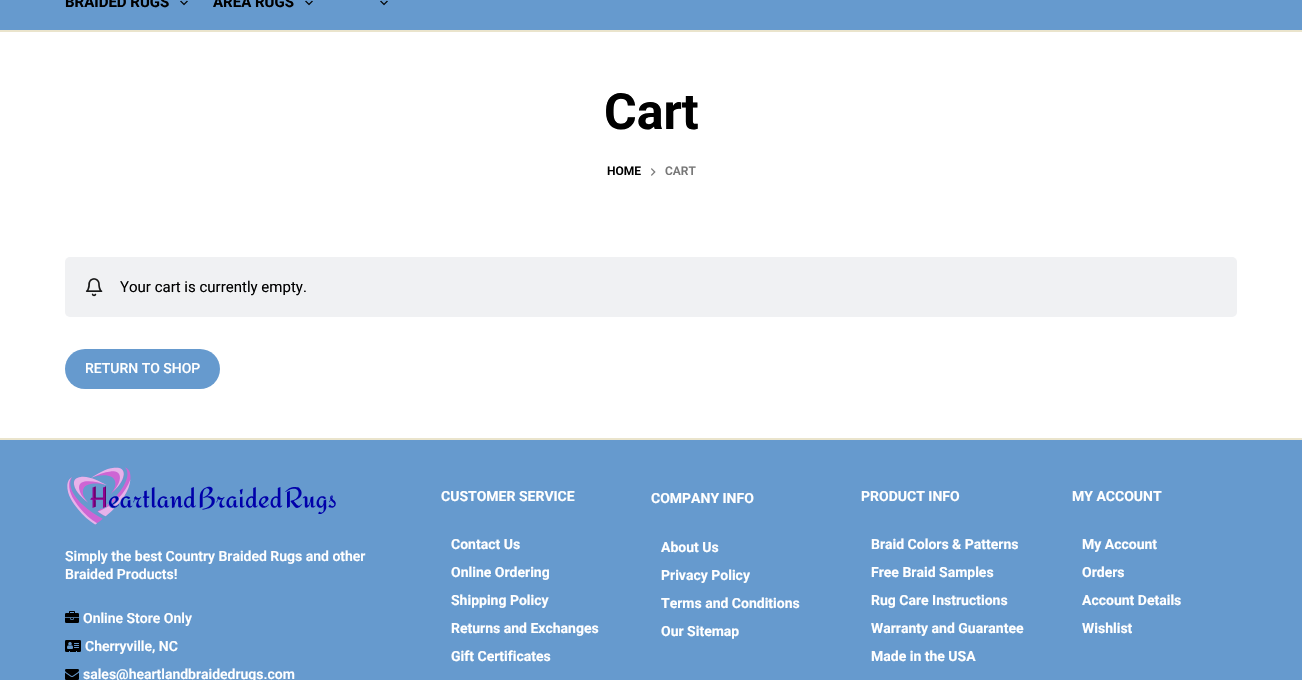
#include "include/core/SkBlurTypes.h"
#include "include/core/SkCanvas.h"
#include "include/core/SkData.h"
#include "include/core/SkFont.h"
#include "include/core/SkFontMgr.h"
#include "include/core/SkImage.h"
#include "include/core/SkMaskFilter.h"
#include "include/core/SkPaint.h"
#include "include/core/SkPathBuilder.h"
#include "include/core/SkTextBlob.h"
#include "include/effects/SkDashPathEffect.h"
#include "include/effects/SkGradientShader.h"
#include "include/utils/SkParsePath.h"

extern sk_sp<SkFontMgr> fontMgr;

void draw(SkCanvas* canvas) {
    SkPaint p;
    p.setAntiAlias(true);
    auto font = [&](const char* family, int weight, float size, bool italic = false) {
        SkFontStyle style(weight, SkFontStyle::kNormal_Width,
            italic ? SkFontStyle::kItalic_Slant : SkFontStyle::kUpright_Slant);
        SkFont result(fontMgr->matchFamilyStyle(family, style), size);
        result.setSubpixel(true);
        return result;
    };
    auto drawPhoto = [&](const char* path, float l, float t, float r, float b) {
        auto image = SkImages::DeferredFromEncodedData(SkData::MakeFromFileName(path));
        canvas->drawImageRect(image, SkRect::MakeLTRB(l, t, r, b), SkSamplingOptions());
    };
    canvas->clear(0xFFFFFFFF);
    p.setColor(0xFF669ACE);
    canvas->drawRect(SkRect::MakeLTRB(0, 0, 1302, 30), p);
    p.setColor(0xFFEAE4CC);
    canvas->drawRect(SkRect::MakeLTRB(0, 30, 1302, 32), p);
    auto font1 = font("Roboto", 700, 15);
    p.setColor(0xFF000000);
    canvas->drawString("BRAIDED RUGS", 65, 7, font1, p);
    drawPhoto("media/1.png", 180, 0, 188, 6);
    canvas->drawString("AREA RUGS", 213, 7, font1, p);
    drawPhoto("media/1.png", 305, 0, 313, 6);
    drawPhoto("media/1.png", 380, 0, 388, 6);
    auto font2 = font("Roboto", 700, 50);
    canvas->drawString("Cart", 604, 129, font2, p);
    auto font3 = font("Roboto", 600, 12);
    canvas->drawString("HOME", 607, 175, font3, p);
    drawPhoto("media/2.png", 651, 168, 656, 176);
    p.setColor(0xFF777777);
    canvas->drawString("CART", 665, 175, font3, p);
    p.setColor(0xFFF0F1F3);
    canvas->drawRoundRect(SkRect::MakeLTRB(65, 257, 1237, 317), 5, 5, p);
    drawPhoto("media/3.png", 85, 278, 103, 297);
    auto font4 = font("Roboto", 400, 15);
    p.setColor(0xFF000000);
    canvas->drawString("Your cart is currently empty.", 120, 292, font4, p);
    p.setColor(0xFF669ACE);
    canvas->drawRoundRect(SkRect::MakeLTRB(65, 349, 220, 389), 20, 20, p);
    auto font5 = font("Roboto", 500, 14);
    p.setColor(0xFFFFFFFF);
    canvas->drawString("RETURN TO SHOP", 85, 373, font5, p);
    p.setColor(0xFF669ACE);
    canvas->drawRect(SkRect::MakeLTRB(0, 440, 1302, 680), p);
    p.setColor(0xFFEAE4CC);
    canvas->drawRect(SkRect::MakeLTRB(0, 438, 1302, 440), p);
    drawPhoto("media/4.png", 67, 467, 336, 525);
    auto font6 = font("Roboto", 600, 14);
    p.setColor(0xFFFFFFFF);
    canvas->drawString("Simply the best Country Braided Rugs and other", 65, 561, font6, p);
    canvas->drawString("Braided Products!", 65, 579, font6, p);
    drawPhoto("media/5.png", 65, 611, 79, 623);
    canvas->drawString("Online Store Only", 83, 623, font6, p);
    drawPhoto("media/6.png", 65, 640, 81, 652);
    canvas->drawString("Cherryville, NC", 85, 651, font6, p);
    drawPhoto("media/7.png", 65, 669, 79, 680);
    canvas->drawString("sales@heartlandbraidedrugs.com", 83, 679, font6, p);
    auto font7 = font("Roboto", 700, 14);
    {
        const struct { const char* s; float x, y; } items[] = {
            {"CUSTOMER SERVICE", 441, 501},
            {"Contact Us", 451, 549},
            {"Online Ordering", 451, 577},
            {"Shipping Policy", 451, 605},
            {"Returns and Exchanges", 451, 633},
            {"Gift Certificates", 451, 661},
            {"COMPANY INFO", 651, 503},
            {"About Us", 661, 552},
            {"Privacy Policy", 661, 580},
            {"Terms and Conditions", 661, 608},
            {"Our Sitemap", 661, 636},
            {"PRODUCT INFO", 861, 501},
            {"Braid Colors & Patterns", 871, 549},
            {"Free Braid Samples", 871, 577},
            {"Rug Care Instructions", 871, 605},
            {"Warranty and Guarantee", 871, 633},
            {"Made in the USA", 871, 661},
            {"MY ACCOUNT", 1072, 501},
            {"My Account", 1082, 549},
            {"Orders", 1082, 577},
            {"Account Details", 1082, 605},
            {"Wishlist", 1082, 633},
        };
        for (auto [s, x, y] : items) {
            canvas->drawString(s, x, y, font7, p);
        }
    }
}
